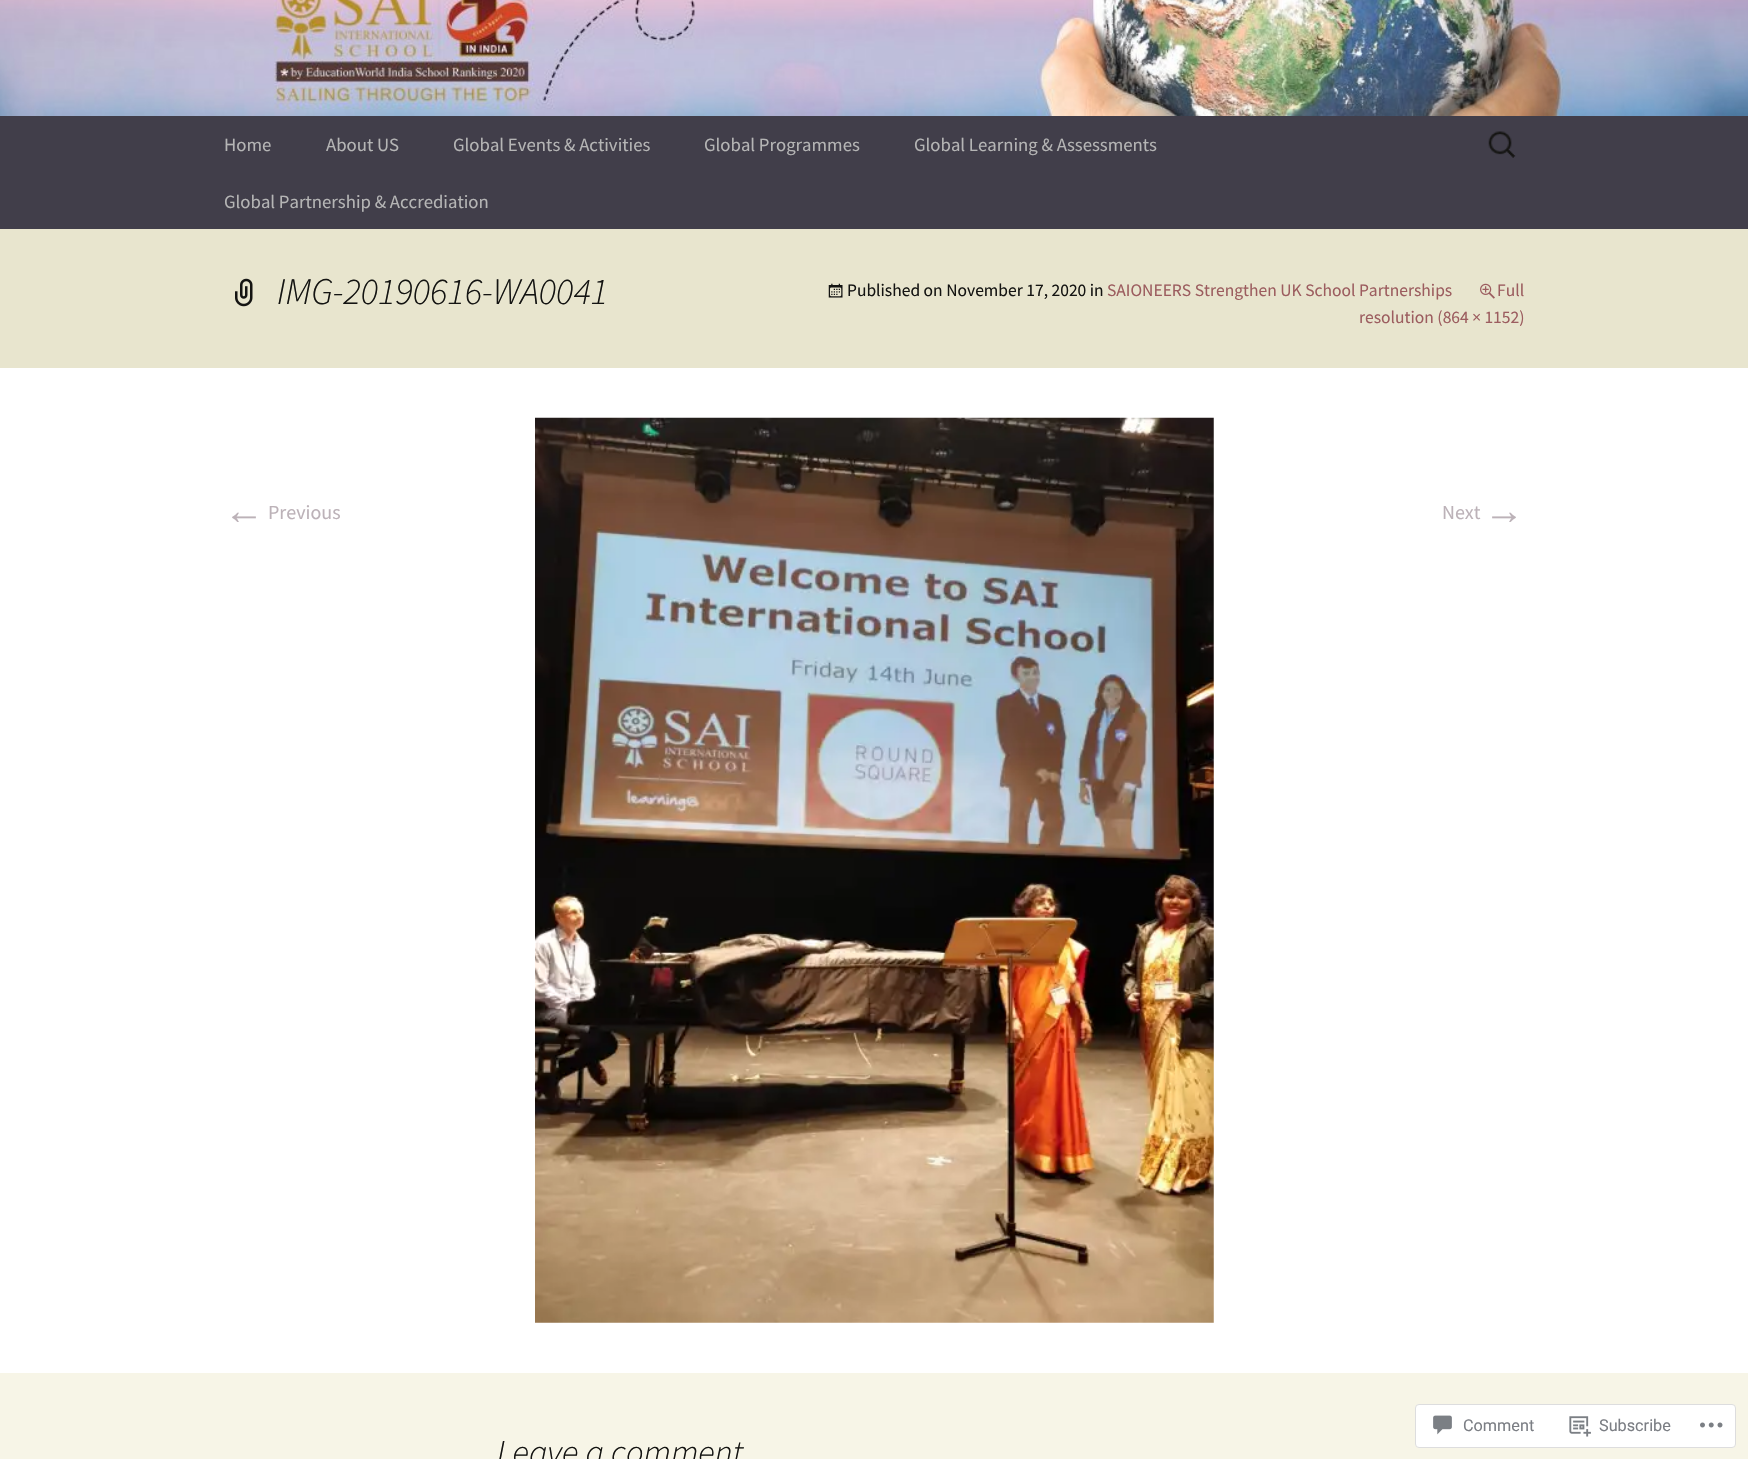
#include "include/core/SkBlurTypes.h"
#include "include/core/SkCanvas.h"
#include "include/core/SkData.h"
#include "include/core/SkFont.h"
#include "include/core/SkFontMgr.h"
#include "include/core/SkImage.h"
#include "include/core/SkMaskFilter.h"
#include "include/core/SkPaint.h"
#include "include/core/SkPathBuilder.h"
#include "include/core/SkTextBlob.h"
#include "include/effects/SkDashPathEffect.h"
#include "include/effects/SkGradientShader.h"
#include "include/utils/SkParsePath.h"

extern sk_sp<SkFontMgr> fontMgr;

void draw(SkCanvas* canvas) {
    SkPaint p;
    p.setAntiAlias(true);
    auto font = [&](const char* family, int weight, float size, bool italic = false) {
        SkFontStyle style(weight, SkFontStyle::kNormal_Width,
            italic ? SkFontStyle::kItalic_Slant : SkFontStyle::kUpright_Slant);
        SkFont result(fontMgr->matchFamilyStyle(family, style), size);
        result.setSubpixel(true);
        return result;
    };
    auto drawPhoto = [&](const char* path, float l, float t, float r, float b) {
        auto image = SkImages::DeferredFromEncodedData(SkData::MakeFromFileName(path));
        canvas->drawImageRect(image, SkRect::MakeLTRB(l, t, r, b), SkSamplingOptions());
    };
    canvas->clear(0xFFFFFFFF);
    drawPhoto("media/1.png", 0, 0, 1748, 116);
    p.setColor(0xFF413E4A);
    canvas->drawRect(SkRect::MakeLTRB(0, 116, 1748, 229), p);
    auto font1 = font("Source Sans Pro", 400, 18.75f);
    p.setColor(0xFFB5B5B5);
    {
        const struct { const char* s; float x, y; } items[] = {
            {"Home", 224, 151},
            {"About US", 326, 151},
            {"Global Events & Activities", 453, 151},
            {"Global Programmes", 704, 151},
            {"Global Learning & Assessments", 914, 151},
            {"Global Partnership & Accrediation", 224, 208},
        };
        for (auto [s, x, y] : items) {
            canvas->drawString(s, x, y, font1, p);
        }
    }
    drawPhoto("media/2.png", 1488, 131, 1516, 158);
    p.setColor(0xFFE8E5CE);
    canvas->drawRect(SkRect::MakeLTRB(0, 229, 1748, 368), p);
    drawPhoto("media/3.png", 235, 278, 253, 307);
    auto font2 = font("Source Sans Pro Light", 300, 37.5f, true);
    p.setColor(0xFF141412);
    canvas->drawString("IMG-20190616-WA0041", 277, 304, font2, p);
    drawPhoto("media/4.png", 828, 283, 843, 298);
    auto font3 = font("Source Sans Pro", 400, 17.5f);
    canvas->drawString("Published on November 17, 2020 in", 847, 296, font3, p);
    p.setColor(0xFF9C5D5F);
    canvas->drawString("SAIONEERS Strengthen UK School Partnerships", 1107, 296, font3, p);
    drawPhoto("media/5.png", 1480, 283, 1495, 299);
    canvas->drawString("Full", 1497, 296, font3, p);
    canvas->drawString("resolution (864 × 1152)", 1359, 323, font3, p);
    drawPhoto("media/6.png", 535, 417, 1214, 1323);
    auto font4 = font("Liberation Sans", 400, 40);
    p.setColor(0xFFBCB2B8);
    canvas->drawString("←", 224, 524, font4, p);
    auto font5 = font("Source Sans Pro", 400, 20);
    canvas->drawString("Previous", 268, 519, font5, p);
    canvas->drawString("Next", 1442, 519, font5, p);
    canvas->drawString("→", 1484, 524, font4, p);
    p.setColor(0xFFF7F5E7);
    canvas->drawRect(SkRect::MakeLTRB(0, 1373, 1748, 1459), p);
    auto font6 = font("Source Sans Pro Light", 300, 35, true);
    p.setColor(0xFF141412);
    canvas->drawString("Leave a comment", 497, 1464, font6, p);
    p.setColor(0xFFFFFFFF);
    canvas->drawRoundRect(SkRect::MakeLTRB(1415.5f, 1404.5f, 1735.5f, 1447.5f), 3.5f, 3.5f, p);
    p.setStyle(SkPaint::kStroke_Style);
    p.setStrokeWidth(1);
    p.setColor(0xFFDDDDDE);
    canvas->drawRoundRect(SkRect::MakeLTRB(1415.5f, 1404.5f, 1735.5f, 1447.5f), 3.5f, 3.5f, p);
    drawPhoto("media/7.png", 1433, 1415, 1452, 1435);
    auto font7 = font("Roboto", 400, 16.25f);
    p.setStyle(SkPaint::kFill_Style);
    p.setColor(0xFF7B7E84);
    canvas->drawString("Comment", 1463, 1431, font7, p);
    drawPhoto("media/8.png", 1569, 1416, 1591, 1437);
    canvas->drawString("Subscribe", 1599, 1431, font7, p);
    drawPhoto("media/9.png", 1700, 1422, 1723, 1428);
}
